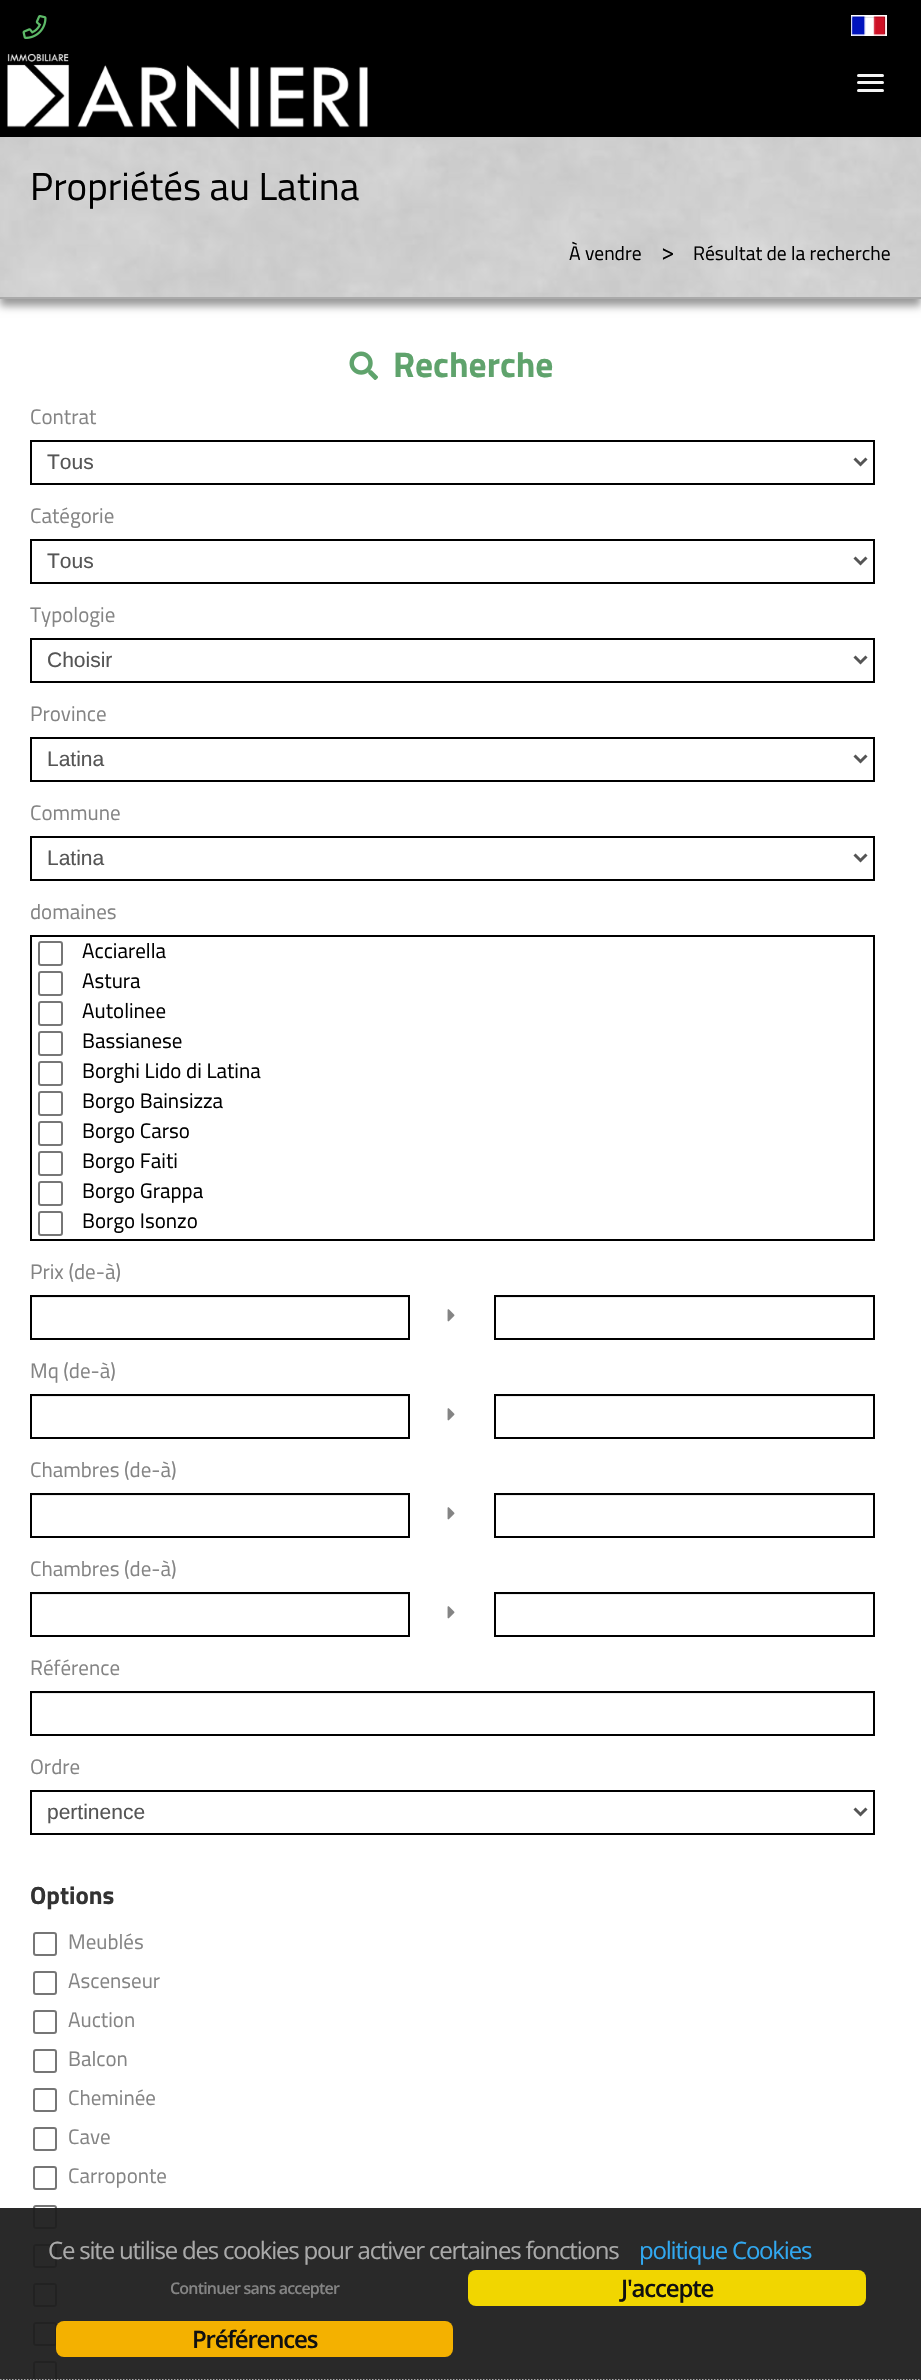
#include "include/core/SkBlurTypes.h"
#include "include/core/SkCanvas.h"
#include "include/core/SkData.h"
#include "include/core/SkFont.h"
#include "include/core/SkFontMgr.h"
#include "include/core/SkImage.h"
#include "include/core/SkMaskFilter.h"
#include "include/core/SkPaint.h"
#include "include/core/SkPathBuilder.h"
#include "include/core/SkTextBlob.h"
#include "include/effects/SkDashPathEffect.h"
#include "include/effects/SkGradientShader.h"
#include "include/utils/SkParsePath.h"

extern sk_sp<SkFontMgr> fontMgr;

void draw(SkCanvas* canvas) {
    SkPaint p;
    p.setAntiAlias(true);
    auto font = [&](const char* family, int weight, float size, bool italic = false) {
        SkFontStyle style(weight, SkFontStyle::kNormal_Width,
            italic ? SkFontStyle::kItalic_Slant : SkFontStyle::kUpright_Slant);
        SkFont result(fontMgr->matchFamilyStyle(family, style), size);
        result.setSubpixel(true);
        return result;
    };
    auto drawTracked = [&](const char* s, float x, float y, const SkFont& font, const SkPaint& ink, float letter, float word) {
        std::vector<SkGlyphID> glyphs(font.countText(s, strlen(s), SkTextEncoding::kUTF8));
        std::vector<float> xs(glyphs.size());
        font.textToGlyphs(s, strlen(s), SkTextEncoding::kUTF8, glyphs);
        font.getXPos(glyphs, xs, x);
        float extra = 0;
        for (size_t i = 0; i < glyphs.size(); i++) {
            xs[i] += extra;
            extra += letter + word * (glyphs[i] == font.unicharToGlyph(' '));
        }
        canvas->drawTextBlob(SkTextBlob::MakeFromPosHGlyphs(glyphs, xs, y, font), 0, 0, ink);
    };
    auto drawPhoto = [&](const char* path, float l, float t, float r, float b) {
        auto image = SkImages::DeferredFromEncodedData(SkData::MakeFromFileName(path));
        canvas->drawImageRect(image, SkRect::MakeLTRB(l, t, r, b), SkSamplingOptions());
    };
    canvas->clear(0xFFFFFFFF);
    p.setColor(0xFF999999);
    p.setMaskFilter(SkMaskFilter::MakeBlur(kNormal_SkBlurStyle, 4));
    canvas->drawRect(SkRect::MakeLTRB(0, 143, 921, 306), p);
    p.setMaskFilter(nullptr);
    p.setColor(0xFF000000);
    canvas->drawRect(SkRect::MakeLTRB(0, 0, 921, 137), p);
    drawPhoto("media/1.png", 22, 15, 47, 39);
    p.setStyle(SkPaint::kStroke_Style);
    p.setStrokeWidth(2);
    p.setColor(0xFFFFFFFF);
    canvas->drawRect(SkRect::MakeLTRB(852, 16, 886, 35), p);
    drawPhoto("media/2.png", 851, 16, 887, 36);
    drawPhoto("media/3.png", 7, 54, 368, 129);
    p.setStyle(SkPaint::kFill_Style);
    p.setColor(0xFFF5F5F5);
    canvas->drawRoundRect(SkRect::MakeLTRB(857, 74, 884, 77), 1.5f, 1.5f, p);
    canvas->drawRoundRect(SkRect::MakeLTRB(857, 81, 884, 84), 1.5f, 1.5f, p);
    canvas->drawRoundRect(SkRect::MakeLTRB(857, 89, 884, 92), 1.5f, 1.5f, p);
    drawPhoto("media/4.png", 0, 137, 921, 297);
    p.setColor(0xFFAAAAAA);
    canvas->drawRect(SkRect::MakeLTRB(0, 297, 921, 299), p);
    auto font1 = font("Titillium Web", 400, 39);
    p.setColor(0xFF000000);
    canvas->drawString("Propriétés au Latina", 30, 200, font1, p);
    auto font2 = font("Titillium Web", 400, 19.5f);
    canvas->drawString("À vendre", 569, 260, font2, p);
    auto font3 = font("Titillium Web", 400, 24);
    canvas->drawString(">", 661, 260, font3, p);
    canvas->drawString("Résultat de la recherche", 693, 260, font2, p);
    drawPhoto("media/5.png", 349, 351, 378, 380);
    auto font4 = font("Titillium Web", 700, 35.5f);
    p.setColor(0xFF5FA36C);
    canvas->drawString("Recherche", 393, 377, font4, p);
    auto font5 = font("Titillium Web", 400, 21);
    p.setColor(0xFF848484);
    canvas->drawString("Contrat", 30, 424, font5, p);
    p.setStyle(SkPaint::kStroke_Style);
    p.setColor(0xFF000000);
    canvas->drawRect(SkRect::MakeLTRB(31, 441, 874, 484), p);
    p.setStrokeWidth(3);
    p.setColor(0xFF555555);
    canvas->drawPath(SkPathBuilder().moveTo(854.5f, 458.5f).lineTo(860.5f, 464.5f).lineTo(866.5f, 458.5f).detach(), p);
    auto font6 = font("Liberation Sans", 400, 21);
    p.setStyle(SkPaint::kFill_Style);
    canvas->drawString("Tous", 47, 469, font6, p);
    p.setColor(0xFF848484);
    canvas->drawString("Catégorie", 30, 523, font5, p);
    p.setStyle(SkPaint::kStroke_Style);
    p.setStrokeWidth(2);
    p.setColor(0xFF000000);
    canvas->drawRect(SkRect::MakeLTRB(31, 540, 874, 583), p);
    p.setStrokeWidth(3);
    p.setColor(0xFF555555);
    canvas->drawPath(SkPathBuilder().moveTo(854.5f, 557.5f).lineTo(860.5f, 563.5f).lineTo(866.5f, 557.5f).detach(), p);
    p.setStyle(SkPaint::kFill_Style);
    canvas->drawString("Tous", 47, 568, font6, p);
    p.setColor(0xFF848484);
    canvas->drawString("Typologie", 30, 622, font5, p);
    p.setStyle(SkPaint::kStroke_Style);
    p.setStrokeWidth(2);
    p.setColor(0xFF000000);
    canvas->drawRect(SkRect::MakeLTRB(31, 639, 874, 682), p);
    p.setStrokeWidth(3);
    p.setColor(0xFF555555);
    canvas->drawPath(SkPathBuilder().moveTo(854.5f, 656.5f).lineTo(860.5f, 662.5f).lineTo(866.5f, 656.5f).detach(), p);
    p.setStyle(SkPaint::kFill_Style);
    canvas->drawString("Choisir", 47, 667, font6, p);
    p.setColor(0xFF848484);
    canvas->drawString("Province", 30, 721, font5, p);
    p.setStyle(SkPaint::kStroke_Style);
    p.setStrokeWidth(2);
    p.setColor(0xFF000000);
    canvas->drawRect(SkRect::MakeLTRB(31, 738, 874, 781), p);
    p.setStrokeWidth(3);
    p.setColor(0xFF555555);
    canvas->drawPath(SkPathBuilder().moveTo(854.5f, 755.5f).lineTo(860.5f, 761.5f).lineTo(866.5f, 755.5f).detach(), p);
    p.setStyle(SkPaint::kFill_Style);
    canvas->drawString("Latina", 47, 766, font6, p);
    p.setColor(0xFF848484);
    canvas->drawString("Commune", 30, 820, font5, p);
    p.setStyle(SkPaint::kStroke_Style);
    p.setStrokeWidth(2);
    p.setColor(0xFF000000);
    canvas->drawRect(SkRect::MakeLTRB(31, 837, 874, 880), p);
    p.setStrokeWidth(3);
    p.setColor(0xFF555555);
    canvas->drawPath(SkPathBuilder().moveTo(854.5f, 854.5f).lineTo(860.5f, 860.5f).lineTo(866.5f, 854.5f).detach(), p);
    p.setStyle(SkPaint::kFill_Style);
    canvas->drawString("Latina", 47, 865, font6, p);
    p.setColor(0xFF848484);
    canvas->drawString("domaines", 30, 919, font5, p);
    p.setStyle(SkPaint::kStroke_Style);
    p.setStrokeWidth(2);
    p.setColor(0xFF000000);
    canvas->drawRect(SkRect::MakeLTRB(31, 936, 874, 1240), p);
    p.setColor(0xFF767676);
    canvas->drawRoundRect(SkRect::MakeLTRB(39, 942, 62, 965), 2, 2, p);
    p.setStyle(SkPaint::kFill_Style);
    p.setColor(0xFF000000);
    canvas->drawString("Acciarella", 82, 958, font5, p);
    p.setStyle(SkPaint::kStroke_Style);
    p.setColor(0xFF767676);
    canvas->drawRoundRect(SkRect::MakeLTRB(39, 972, 62, 995), 2, 2, p);
    p.setStyle(SkPaint::kFill_Style);
    p.setColor(0xFF000000);
    canvas->drawString("Astura", 82, 988, font5, p);
    p.setStyle(SkPaint::kStroke_Style);
    p.setColor(0xFF767676);
    canvas->drawRoundRect(SkRect::MakeLTRB(39, 1002, 62, 1025), 2, 2, p);
    p.setStyle(SkPaint::kFill_Style);
    p.setColor(0xFF000000);
    canvas->drawString("Autolinee", 82, 1018, font5, p);
    p.setStyle(SkPaint::kStroke_Style);
    p.setColor(0xFF767676);
    canvas->drawRoundRect(SkRect::MakeLTRB(39, 1032, 62, 1055), 2, 2, p);
    p.setStyle(SkPaint::kFill_Style);
    p.setColor(0xFF000000);
    canvas->drawString("Bassianese", 82, 1048, font5, p);
    p.setStyle(SkPaint::kStroke_Style);
    p.setColor(0xFF767676);
    canvas->drawRoundRect(SkRect::MakeLTRB(39, 1062, 62, 1085), 2, 2, p);
    p.setStyle(SkPaint::kFill_Style);
    p.setColor(0xFF000000);
    canvas->drawString("Borghi Lido di Latina", 82, 1078, font5, p);
    p.setStyle(SkPaint::kStroke_Style);
    p.setColor(0xFF767676);
    canvas->drawRoundRect(SkRect::MakeLTRB(39, 1092, 62, 1115), 2, 2, p);
    p.setStyle(SkPaint::kFill_Style);
    p.setColor(0xFF000000);
    canvas->drawString("Borgo Bainsizza", 82, 1108, font5, p);
    p.setStyle(SkPaint::kStroke_Style);
    p.setColor(0xFF767676);
    canvas->drawRoundRect(SkRect::MakeLTRB(39, 1122, 62, 1145), 2, 2, p);
    p.setStyle(SkPaint::kFill_Style);
    p.setColor(0xFF000000);
    canvas->drawString("Borgo Carso", 82, 1138, font5, p);
    p.setStyle(SkPaint::kStroke_Style);
    p.setColor(0xFF767676);
    canvas->drawRoundRect(SkRect::MakeLTRB(39, 1152, 62, 1175), 2, 2, p);
    p.setStyle(SkPaint::kFill_Style);
    p.setColor(0xFF000000);
    canvas->drawString("Borgo Faiti", 82, 1168, font5, p);
    p.setStyle(SkPaint::kStroke_Style);
    p.setColor(0xFF767676);
    canvas->drawRoundRect(SkRect::MakeLTRB(39, 1182, 62, 1205), 2, 2, p);
    p.setStyle(SkPaint::kFill_Style);
    p.setColor(0xFF000000);
    canvas->drawString("Borgo Grappa", 82, 1198, font5, p);
    p.setStyle(SkPaint::kStroke_Style);
    p.setColor(0xFF767676);
    canvas->drawRoundRect(SkRect::MakeLTRB(39, 1212, 62, 1235), 2, 2, p);
    p.setStyle(SkPaint::kFill_Style);
    p.setColor(0xFF000000);
    canvas->drawString("Borgo Isonzo", 82, 1228, font5, p);
    p.setColor(0xFF848484);
    canvas->drawString("Prix (de-à)", 30, 1279, font5, p);
    p.setColor(0xFFECECEC);
    canvas->drawRect(SkRect::MakeLTRB(32, 1297, 408, 1298), p);
    p.setStyle(SkPaint::kStroke_Style);
    p.setColor(0xFF000000);
    canvas->drawRect(SkRect::MakeLTRB(31, 1296, 409, 1339), p);
    drawPhoto("media/6.png", 447, 1309, 455, 1322);
    p.setStyle(SkPaint::kFill_Style);
    p.setColor(0xFFECECEC);
    canvas->drawRect(SkRect::MakeLTRB(495, 1297, 873, 1298), p);
    p.setStyle(SkPaint::kStroke_Style);
    p.setColor(0xFF000000);
    canvas->drawRect(SkRect::MakeLTRB(495, 1296, 874, 1339), p);
    p.setStyle(SkPaint::kFill_Style);
    p.setColor(0xFF848484);
    canvas->drawString("Mq (de-à)", 30, 1378, font5, p);
    p.setColor(0xFFECECEC);
    canvas->drawRect(SkRect::MakeLTRB(32, 1396, 408, 1397), p);
    p.setStyle(SkPaint::kStroke_Style);
    p.setColor(0xFF000000);
    canvas->drawRect(SkRect::MakeLTRB(31, 1395, 409, 1438), p);
    drawPhoto("media/6.png", 447, 1408, 455, 1421);
    p.setStyle(SkPaint::kFill_Style);
    p.setColor(0xFFECECEC);
    canvas->drawRect(SkRect::MakeLTRB(495, 1396, 873, 1397), p);
    p.setStyle(SkPaint::kStroke_Style);
    p.setColor(0xFF000000);
    canvas->drawRect(SkRect::MakeLTRB(495, 1395, 874, 1438), p);
    p.setStyle(SkPaint::kFill_Style);
    p.setColor(0xFF848484);
    canvas->drawString("Chambres (de-à)", 30, 1477, font5, p);
    p.setColor(0xFFECECEC);
    canvas->drawRect(SkRect::MakeLTRB(32, 1495, 408, 1496), p);
    p.setStyle(SkPaint::kStroke_Style);
    p.setColor(0xFF000000);
    canvas->drawRect(SkRect::MakeLTRB(31, 1494, 409, 1537), p);
    drawPhoto("media/6.png", 447, 1507, 455, 1520);
    p.setStyle(SkPaint::kFill_Style);
    p.setColor(0xFFECECEC);
    canvas->drawRect(SkRect::MakeLTRB(495, 1495, 873, 1496), p);
    p.setStyle(SkPaint::kStroke_Style);
    p.setColor(0xFF000000);
    canvas->drawRect(SkRect::MakeLTRB(495, 1494, 874, 1537), p);
    p.setStyle(SkPaint::kFill_Style);
    p.setColor(0xFF848484);
    canvas->drawString("Chambres (de-à)", 30, 1576, font5, p);
    p.setColor(0xFFECECEC);
    canvas->drawRect(SkRect::MakeLTRB(32, 1594, 408, 1595), p);
    p.setStyle(SkPaint::kStroke_Style);
    p.setColor(0xFF000000);
    canvas->drawRect(SkRect::MakeLTRB(31, 1593, 409, 1636), p);
    drawPhoto("media/6.png", 447, 1606, 455, 1619);
    p.setStyle(SkPaint::kFill_Style);
    p.setColor(0xFFECECEC);
    canvas->drawRect(SkRect::MakeLTRB(495, 1594, 873, 1595), p);
    p.setStyle(SkPaint::kStroke_Style);
    p.setColor(0xFF000000);
    canvas->drawRect(SkRect::MakeLTRB(495, 1593, 874, 1636), p);
    p.setStyle(SkPaint::kFill_Style);
    p.setColor(0xFF848484);
    canvas->drawString("Référence", 30, 1675, font5, p);
    p.setColor(0xFFECECEC);
    canvas->drawRect(SkRect::MakeLTRB(32, 1693, 873, 1694), p);
    p.setStyle(SkPaint::kStroke_Style);
    p.setColor(0xFF000000);
    canvas->drawRect(SkRect::MakeLTRB(31, 1692, 874, 1735), p);
    p.setStyle(SkPaint::kFill_Style);
    p.setColor(0xFF848484);
    canvas->drawString("Ordre", 30, 1774, font5, p);
    p.setStyle(SkPaint::kStroke_Style);
    p.setColor(0xFF000000);
    canvas->drawRect(SkRect::MakeLTRB(31, 1791, 874, 1834), p);
    p.setStrokeWidth(3);
    p.setColor(0xFF555555);
    canvas->drawPath(SkPathBuilder().moveTo(854.5f, 1808.5f).lineTo(860.5f, 1814.5f).lineTo(866.5f, 1808.5f).detach(), p);
    p.setStyle(SkPaint::kFill_Style);
    canvas->drawString("pertinence", 47, 1819, font6, p);
    auto font7 = font("Titillium Web", 700, 25);
    p.setColor(0xFF333333);
    canvas->drawString("Options", 30, 1904, font7, p);
    p.setStyle(SkPaint::kStroke_Style);
    p.setStrokeWidth(2);
    p.setColor(0xFF767676);
    canvas->drawRoundRect(SkRect::MakeLTRB(34, 1933, 56, 1955), 2, 2, p);
    p.setStyle(SkPaint::kFill_Style);
    p.setColor(0xFF848484);
    canvas->drawString("Meublés", 68, 1949, font5, p);
    p.setStyle(SkPaint::kStroke_Style);
    p.setColor(0xFF767676);
    canvas->drawRoundRect(SkRect::MakeLTRB(34, 1972, 56, 1994), 2, 2, p);
    p.setStyle(SkPaint::kFill_Style);
    p.setColor(0xFF848484);
    canvas->drawString("Ascenseur", 68, 1988, font5, p);
    p.setStyle(SkPaint::kStroke_Style);
    p.setColor(0xFF767676);
    canvas->drawRoundRect(SkRect::MakeLTRB(34, 2011, 56, 2033), 2, 2, p);
    p.setStyle(SkPaint::kFill_Style);
    p.setColor(0xFF848484);
    canvas->drawString("Auction", 68, 2027, font5, p);
    p.setStyle(SkPaint::kStroke_Style);
    p.setColor(0xFF767676);
    canvas->drawRoundRect(SkRect::MakeLTRB(34, 2050, 56, 2072), 2, 2, p);
    p.setStyle(SkPaint::kFill_Style);
    p.setColor(0xFF848484);
    canvas->drawString("Balcon", 68, 2066, font5, p);
    p.setStyle(SkPaint::kStroke_Style);
    p.setColor(0xFF767676);
    canvas->drawRoundRect(SkRect::MakeLTRB(34, 2089, 56, 2111), 2, 2, p);
    p.setStyle(SkPaint::kFill_Style);
    p.setColor(0xFF848484);
    canvas->drawString("Cheminée", 68, 2105, font5, p);
    p.setStyle(SkPaint::kStroke_Style);
    p.setColor(0xFF767676);
    canvas->drawRoundRect(SkRect::MakeLTRB(34, 2128, 56, 2150), 2, 2, p);
    p.setStyle(SkPaint::kFill_Style);
    p.setColor(0xFF848484);
    canvas->drawString("Cave", 68, 2144, font5, p);
    p.setStyle(SkPaint::kStroke_Style);
    p.setColor(0xFF767676);
    canvas->drawRoundRect(SkRect::MakeLTRB(34, 2167, 56, 2189), 2, 2, p);
    p.setStyle(SkPaint::kFill_Style);
    p.setColor(0xFF848484);
    canvas->drawString("Carroponte", 68, 2183, font5, p);
    p.setStyle(SkPaint::kStroke_Style);
    p.setColor(0xFF767676);
    canvas->drawRoundRect(SkRect::MakeLTRB(34, 2206, 56, 2228), 2, 2, p);
    canvas->drawRoundRect(SkRect::MakeLTRB(34, 2245, 56, 2267), 2, 2, p);
    canvas->drawRoundRect(SkRect::MakeLTRB(34, 2284, 56, 2306), 2, 2, p);
    canvas->drawRoundRect(SkRect::MakeLTRB(34, 2323, 56, 2345), 2, 2, p);
    canvas->drawRoundRect(SkRect::MakeLTRB(34, 2362, 56, 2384), 2, 2, p);
    p.setStyle(SkPaint::kFill_Style);
    p.setColor(0xF21D1D1D);
    canvas->drawRect(SkRect::MakeLTRB(0, 2208, 921, 2380), p);
    p.setStyle(SkPaint::kStroke_Style);
    p.setStrokeWidth(1.5f);
    p.setColor(0xFFCCCCCC);
    p.setPathEffect(SkDashPathEffect::Make({{1.5f, 1.5f}}, 0));
    canvas->drawPath(SkPathBuilder().moveTo(0, 2380).lineTo(921, 2380).detach(), p);
    p.setPathEffect(nullptr);
    auto font8 = font("Open Sans", 400, 24);
    p.setStyle(SkPaint::kFill_Style);
    p.setColor(0xFFAAAAAA);
    drawTracked("Ce site utilise des cookies pour activer certaines fonctions", 48, 2259, font8, p, -1.2f, 0);
    p.setColor(0xFF31A8F0);
    drawTracked("politique Cookies", 639, 2259, font8, p, -1.2f, 0);
    auto font9 = font("Open Sans", 600, 16);
    p.setColor(0xFF848484);
    drawTracked("Continuer sans accepter", 170, 2294, font9, p, -0.8f, 0);
    p.setColor(0xFFF1D600);
    canvas->drawRoundRect(SkRect::MakeLTRB(468, 2270, 866, 2306), 8, 8, p);
    auto font10 = font("Open Sans", 600, 24);
    p.setColor(0xFF111111);
    drawTracked("J'accepte", 621, 2297, font10, p, -1.2f, 0);
    p.setColor(0xFFF4B100);
    canvas->drawRoundRect(SkRect::MakeLTRB(56, 2321, 453, 2357), 8, 8, p);
    p.setColor(0xFF111111);
    drawTracked("Préférences", 192, 2348, font10, p, -1.2f, 0);
}
